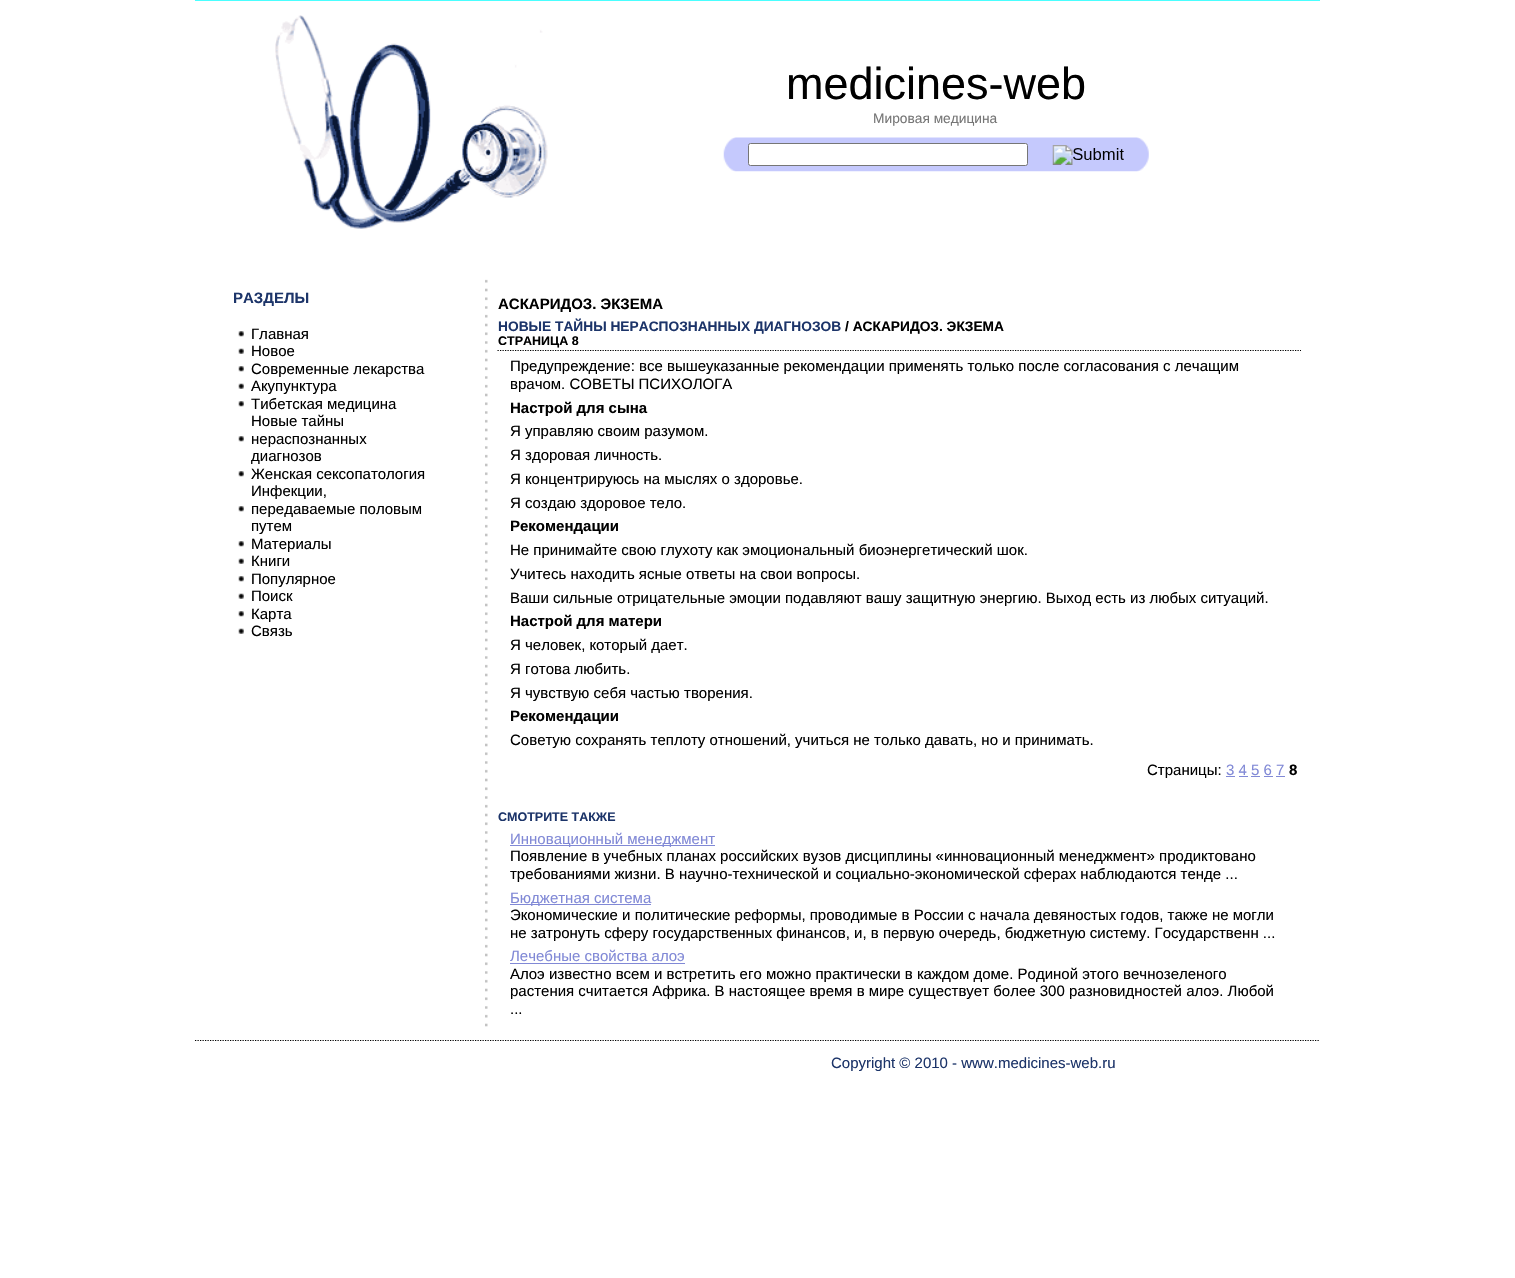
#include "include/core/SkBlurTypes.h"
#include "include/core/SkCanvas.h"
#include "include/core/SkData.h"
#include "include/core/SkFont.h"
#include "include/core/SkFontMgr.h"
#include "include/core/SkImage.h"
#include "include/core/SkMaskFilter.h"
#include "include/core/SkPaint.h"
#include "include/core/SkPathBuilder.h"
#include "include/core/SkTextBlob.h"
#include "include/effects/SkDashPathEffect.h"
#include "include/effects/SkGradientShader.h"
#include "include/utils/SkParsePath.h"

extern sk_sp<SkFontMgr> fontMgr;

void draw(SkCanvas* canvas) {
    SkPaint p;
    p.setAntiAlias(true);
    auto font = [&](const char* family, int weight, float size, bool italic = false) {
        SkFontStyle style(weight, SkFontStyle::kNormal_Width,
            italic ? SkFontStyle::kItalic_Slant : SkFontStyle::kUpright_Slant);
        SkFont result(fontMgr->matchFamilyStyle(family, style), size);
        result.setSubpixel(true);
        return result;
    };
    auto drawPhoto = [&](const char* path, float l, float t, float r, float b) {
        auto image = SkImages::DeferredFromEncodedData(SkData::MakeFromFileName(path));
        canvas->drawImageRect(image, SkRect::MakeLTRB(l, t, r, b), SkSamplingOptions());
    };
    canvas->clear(0xFFFFFFFF);
    p.setColor(0xFF4AFFFF);
    canvas->drawRect(SkRect::MakeLTRB(195, 0, 1320, 1), p);
    drawPhoto("media/1.png", 275, 15, 548, 229);
    auto font1 = font("Liberation Sans", 400, 45);
    p.setColor(0xFF000000);
    canvas->drawString("medicines-web", 786, 99, font1, p);
    auto font2 = font("Liberation Sans", 400, 13.75f);
    p.setColor(0xFF767676);
    canvas->drawString("Мировая медицина", 873, 123, font2, p);
    drawPhoto("media/2.png", 723, 137, 1149, 172);
    p.setColor(0xFFFFFFFF);
    canvas->drawRoundRect(SkRect::MakeLTRB(748.5f, 143.5f, 1027.5f, 165.5f), 2, 2, p);
    p.setStyle(SkPaint::kStroke_Style);
    p.setStrokeWidth(1);
    p.setColor(0xFF767676);
    canvas->drawRoundRect(SkRect::MakeLTRB(748.5f, 143.5f, 1027.5f, 165.5f), 2, 2, p);
    drawPhoto("media/3.png", 1052, 145, 1124, 165);
    auto font3 = font("Liberation Sans", 700, 15);
    p.setStyle(SkPaint::kFill_Style);
    p.setColor(0xFF1C3469);
    canvas->drawString("РАЗДЕЛЫ", 233, 303, font3, p);
    drawPhoto("media/4.png", 238, 331, 244, 337);
    auto font4 = font("Liberation Sans", 400, 15);
    p.setColor(0xFF000000);
    canvas->drawString("Главная", 251, 339, font4, p);
    drawPhoto("media/5.png", 238, 348, 244, 354);
    canvas->drawString("Новое", 251, 356, font4, p);
    drawPhoto("media/4.png", 238, 366, 244, 372);
    canvas->drawString("Современные лекарства", 251, 374, font4, p);
    drawPhoto("media/5.png", 238, 383, 244, 389);
    canvas->drawString("Акупунктура", 251, 391, font4, p);
    drawPhoto("media/4.png", 238, 401, 244, 407);
    canvas->drawString("Тибетская медицина", 251, 409, font4, p);
    drawPhoto("media/4.png", 238, 436, 244, 442);
    {
        const struct { const char* s; float x, y; } items[] = {
            {"Новые тайны", 251, 426},
            {"нераспознанных", 251, 444},
            {"диагнозов", 251, 461},
        };
        for (auto [s, x, y] : items) {
            canvas->drawString(s, x, y, font4, p);
        }
    }
    drawPhoto("media/4.png", 238, 471, 244, 477);
    canvas->drawString("Женская сексопатология", 251, 479, font4, p);
    drawPhoto("media/4.png", 238, 506, 244, 512);
    {
        const struct { const char* s; float x, y; } items[] = {
            {"Инфекции,", 251, 496},
            {"передаваемые половым", 251, 514},
            {"путем", 251, 531},
        };
        for (auto [s, x, y] : items) {
            canvas->drawString(s, x, y, font4, p);
        }
    }
    drawPhoto("media/4.png", 238, 541, 244, 547);
    canvas->drawString("Материалы", 251, 549, font4, p);
    drawPhoto("media/5.png", 238, 558, 244, 564);
    canvas->drawString("Книги", 251, 566, font4, p);
    drawPhoto("media/4.png", 238, 576, 244, 582);
    canvas->drawString("Популярное", 251, 584, font4, p);
    drawPhoto("media/5.png", 238, 593, 244, 599);
    canvas->drawString("Поиск", 251, 601, font4, p);
    drawPhoto("media/4.png", 238, 611, 244, 617);
    canvas->drawString("Карта", 251, 619, font4, p);
    drawPhoto("media/5.png", 238, 628, 244, 634);
    canvas->drawString("Связь", 251, 636, font4, p);
    drawPhoto("media/6.png", 485, 279, 488, 1027);
    p.setStyle(SkPaint::kStroke_Style);
    p.setStrokeWidth(1.2f);
    p.setPathEffect(SkDashPathEffect::Make({{1.25f, 1.25f}}, 0));
    canvas->drawPath(SkPathBuilder().moveTo(497.5f, 350.5f).lineTo(1301, 350.5f).detach(), p);
    p.setPathEffect(nullptr);
    p.setStyle(SkPaint::kFill_Style);
    canvas->drawString("АСКАРИДОЗ. ЭКЗЕМА", 498, 309, font3, p);
    auto font5 = font("Liberation Sans", 700, 13.75f);
    p.setColor(0xFF1C3469);
    canvas->drawString("НОВЫЕ ТАЙНЫ НЕРАСПОЗНАННЫХ ДИАГНОЗОВ", 498, 331, font5, p);
    p.setColor(0xFF000000);
    canvas->drawString("/ АСКАРИДОЗ. ЭКЗЕМА", 845, 331, font5, p);
    auto font6 = font("Liberation Sans", 700, 12.5f);
    canvas->drawString("СТРАНИЦА 8", 498, 345, font6, p);
    canvas->drawString("Предупреждение: все вышеуказанные рекомендации применять только после согласования с лечащим", 510, 371, font4, p);
    canvas->drawString("врачом. СОВЕТЫ ПСИХОЛОГА", 510, 389, font4, p);
    canvas->drawString("Настрой для сына", 510, 413, font3, p);
    {
        const struct { const char* s; float x, y; } items[] = {
            {"Я управляю своим разумом.", 510, 436},
            {"Я здоровая личность.", 510, 460},
            {"Я концентрируюсь на мыслях о здоровье.", 510, 484},
            {"Я создаю здоровое тело.", 510, 508},
        };
        for (auto [s, x, y] : items) {
            canvas->drawString(s, x, y, font4, p);
        }
    }
    canvas->drawString("Рекомендации", 510, 531, font3, p);
    {
        const struct { const char* s; float x, y; } items[] = {
            {"Не принимайте свою глухоту как эмоциональный биоэнергетический шок.", 510, 555},
            {"Учитесь находить ясные ответы на свои вопросы.", 510, 579},
            {"Ваши сильные отрицательные эмоции подавляют вашу защитную энергию. Выход есть из любых ситуаций.", 510, 603},
        };
        for (auto [s, x, y] : items) {
            canvas->drawString(s, x, y, font4, p);
        }
    }
    canvas->drawString("Настрой для матери", 510, 626, font3, p);
    {
        const struct { const char* s; float x, y; } items[] = {
            {"Я человек, который дает.", 510, 650},
            {"Я готова любить.", 510, 674},
            {"Я чувствую себя частью творения.", 510, 698},
        };
        for (auto [s, x, y] : items) {
            canvas->drawString(s, x, y, font4, p);
        }
    }
    canvas->drawString("Рекомендации", 510, 721, font3, p);
    canvas->drawString("Советую сохранять теплоту отношений, учиться не только давать, но и принимать.", 510, 745, font4, p);
    canvas->drawString("Страницы:", 1147, 775, font4, p);
    p.setColor(0xFF8189D6);
    canvas->drawString("3 4 5 6 7", 1226, 775, font4, p);
    canvas->drawRect(SkRect::MakeLTRB(1226, 776, 1235, 777), p);
    p.setColor(0xFF000000);
    canvas->drawString("8", 1289, 775, font3, p);
    {
        const struct { float l, t, r, b; SkColor color; } items[] = {
            {1239, 776, 1248, 777, 0xFF8189D6},
            {1251, 776, 1260, 777, 0xFF8189D6},
            {1264, 776, 1273, 777, 0xFF8189D6},
            {1276, 776, 1285, 777, 0xFF8189D6},
        };
        for (auto [l, t, r, b, color] : items) {
            p.setColor(color);
            canvas->drawRect(SkRect::MakeLTRB(l, t, r, b), p);
        }
    }
    p.setColor(0xFF1C3469);
    canvas->drawString("СМОТРИТЕ ТАКЖЕ", 498, 821, font6, p);
    p.setColor(0xFF8189D6);
    canvas->drawRect(SkRect::MakeLTRB(510, 845, 715, 846), p);
    canvas->drawString("Инновационный менеджмент", 510, 844, font4, p);
    p.setColor(0xFF000000);
    canvas->drawString("Появление в учебных планах российских вузов дисциплины «инновационный менеджмент» продиктовано", 510, 861, font4, p);
    canvas->drawString("требованиями жизни. В научно-технической и социально-экономической сферах наблюдаются тенде ...", 510, 879, font4, p);
    p.setColor(0xFF8189D6);
    canvas->drawRect(SkRect::MakeLTRB(510, 904, 651, 905), p);
    canvas->drawString("Бюджетная система", 510, 903, font4, p);
    p.setColor(0xFF000000);
    canvas->drawString("Экономические и политические реформы, проводимые в России с начала девяностых годов, также не могли", 510, 920, font4, p);
    canvas->drawString("не затронуть сферу государственных финансов, и, в первую очередь, бюджетную систему. Государственн ...", 510, 938, font4, p);
    p.setColor(0xFF8189D6);
    canvas->drawString("Лечебные свойства алоэ", 510, 961, font4, p);
    canvas->drawRect(SkRect::MakeLTRB(510, 963, 685, 964), p);
    p.setColor(0xFF000000);
    {
        const struct { const char* s; float x, y; } items[] = {
            {"Алоэ известно всем и встретить его можно практически в каждом доме. Родиной этого вечнозеленого", 510, 979},
            {"растения считается Африка. В настоящее время в мире существует более 300 разновидностей алоэ. Любой", 510, 996},
            {"...", 510, 1014},
        };
        for (auto [s, x, y] : items) {
            canvas->drawString(s, x, y, font4, p);
        }
    }
    p.setStyle(SkPaint::kStroke_Style);
    p.setPathEffect(SkDashPathEffect::Make({{1.25f, 1.25f}}, 0));
    canvas->drawPath(SkPathBuilder().moveTo(195, 1040.5f).lineTo(1320, 1040.5f).detach(), p);
    p.setPathEffect(nullptr);
    p.setStyle(SkPaint::kFill_Style);
    p.setColor(0xFF1C3469);
    canvas->drawString("Copyright © 2010 - www.medicines-web.ru", 831, 1068, font4, p);
}
